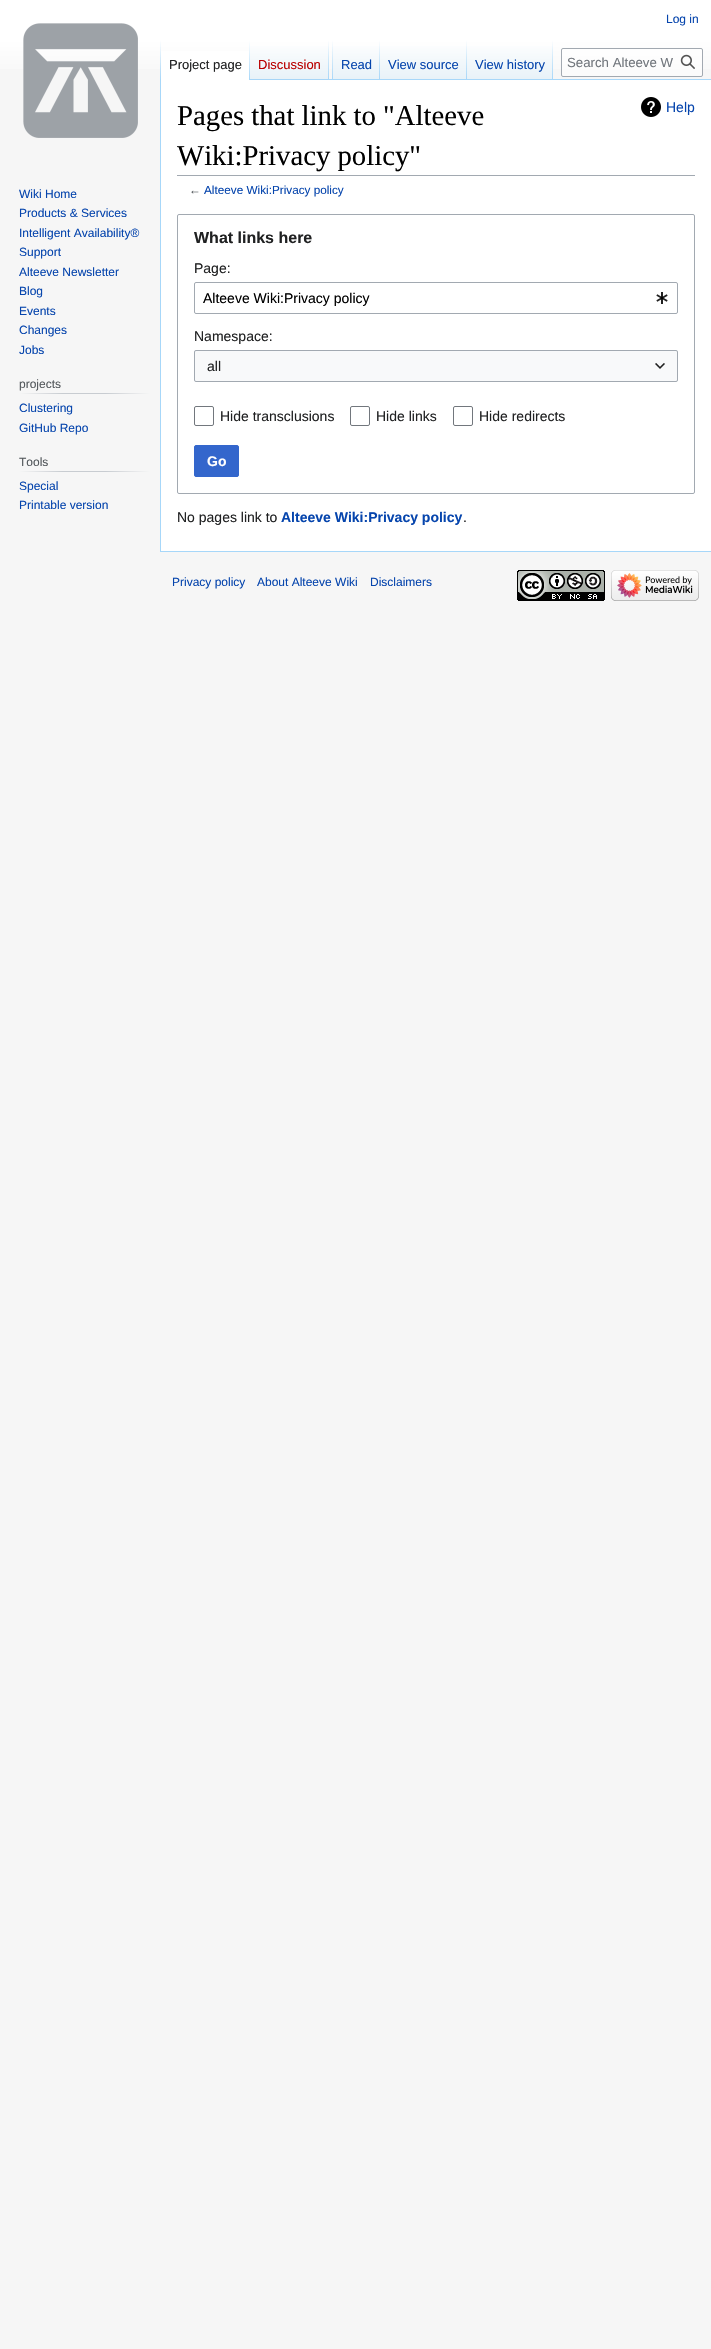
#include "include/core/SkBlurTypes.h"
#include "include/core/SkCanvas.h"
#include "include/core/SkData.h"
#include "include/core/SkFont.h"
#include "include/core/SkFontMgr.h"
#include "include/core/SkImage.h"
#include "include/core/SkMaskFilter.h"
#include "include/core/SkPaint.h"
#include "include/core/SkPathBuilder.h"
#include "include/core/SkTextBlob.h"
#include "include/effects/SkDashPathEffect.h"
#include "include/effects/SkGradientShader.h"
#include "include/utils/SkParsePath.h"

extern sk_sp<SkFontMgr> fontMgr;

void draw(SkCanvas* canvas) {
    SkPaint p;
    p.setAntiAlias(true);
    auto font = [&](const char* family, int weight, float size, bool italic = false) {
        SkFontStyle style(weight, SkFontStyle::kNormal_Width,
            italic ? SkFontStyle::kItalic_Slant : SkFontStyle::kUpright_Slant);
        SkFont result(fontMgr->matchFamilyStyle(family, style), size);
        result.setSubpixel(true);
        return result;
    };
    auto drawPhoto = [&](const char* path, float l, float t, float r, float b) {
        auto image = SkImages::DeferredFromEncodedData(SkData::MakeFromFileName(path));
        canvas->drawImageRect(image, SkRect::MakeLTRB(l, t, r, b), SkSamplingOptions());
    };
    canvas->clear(0xFFF6F6F6);
    {
        const SkColor colors[] = {0xFFFFFFFF, 0xFFF6F6F6};
        const float stops[] = {0.5f, 1};
        const SkPoint ends[] = {{356, 0}, {356, 80}};
        p.setShader(SkGradientShader::MakeLinear(ends, colors, stops, 2, SkTileMode::kClamp));
        p.setAlpha(255);
    }
    canvas->drawRect(SkRect::MakeLTRB(0, 0, 711, 69), p);
    auto font1 = font("Liberation Sans", 400, 12);
    p.setShader(nullptr);
    p.setColor(0xFF0645AD);
    canvas->drawString("Log in", 666, 23, font1, p);
    p.setColor(0xFFA7D7F9);
    canvas->drawRect(SkRect::MakeLTRB(160, 551, 711, 552), p);
    canvas->drawRect(SkRect::MakeLTRB(160, 79, 161, 552), p);
    {
        const SkColor colors[] = {0x00A7D7F9, 0xFFA7D7F9};
        const float stops[] = {0, 1};
        const SkPoint ends[] = {{161, 40}, {161, 80}};
        p.setShader(SkGradientShader::MakeLinear(ends, colors, stops, 2, SkTileMode::kClamp));
        p.setAlpha(255);
    }
    canvas->drawRect(SkRect::MakeLTRB(160, 40, 161, 80), p);
    p.setShader(nullptr);
    p.setColor(0xFFFFFFFF);
    canvas->drawRect(SkRect::MakeLTRB(161, 51, 249, 80), p);
    {
        const SkColor colors[] = {0xFFFFFFFF, 0xFFA7D7F9};
        const float stops[] = {0, 1};
        const SkPoint ends[] = {{250, 40}, {250, 80}};
        p.setShader(SkGradientShader::MakeLinear(ends, colors, stops, 2, SkTileMode::kClamp));
        p.setAlpha(255);
    }
    canvas->drawRect(SkRect::MakeLTRB(249, 40, 250, 80), p);
    auto font2 = font("Liberation Sans", 400, 13);
    p.setShader(nullptr);
    p.setColor(0xFF202122);
    canvas->drawString("Project page", 169, 69, font2, p);
    {
        const SkColor colors[] = {0xFF77C1F6, 0xFFE8F2F8, 0xFFFFFFFF};
        const float stops[] = {0, 0.03f, 1};
        const SkPoint ends[] = {{290, 80}, {290, 40}};
        p.setShader(SkGradientShader::MakeLinear(ends, colors, stops, 3, SkTileMode::kClamp));
        p.setAlpha(255);
    }
    canvas->drawRect(SkRect::MakeLTRB(250, 46, 329, 80), p);
    {
        const SkColor colors[] = {0x00A7D7F9, 0xFFA7D7F9};
        const float stops[] = {0, 1};
        const SkPoint ends[] = {{329, 40}, {329, 80}};
        p.setShader(SkGradientShader::MakeLinear(ends, colors, stops, 2, SkTileMode::kClamp));
        p.setAlpha(255);
    }
    canvas->drawRect(SkRect::MakeLTRB(328, 40, 329, 80), p);
    p.setShader(nullptr);
    p.setColor(0xFFBA0000);
    canvas->drawString("Discussion", 258, 69, font2, p);
    p.setColor(0xFFA7D7F9);
    canvas->drawRect(SkRect::MakeLTRB(329, 79, 711, 80), p);
    {
        const SkColor colors[] = {0x00A7D7F9, 0xFFA7D7F9};
        const float stops[] = {0, 1};
        const SkPoint ends[] = {{333, 40}, {333, 80}};
        p.setShader(SkGradientShader::MakeLinear(ends, colors, stops, 2, SkTileMode::kClamp));
        p.setAlpha(255);
    }
    canvas->drawRect(SkRect::MakeLTRB(332, 40, 333, 80), p);
    {
        const SkColor colors[] = {0xFF77C1F6, 0xFFE8F2F8, 0xFFFFFFFF};
        const float stops[] = {0, 0.03f, 1};
        const SkPoint ends[] = {{357, 80}, {357, 40}};
        p.setShader(SkGradientShader::MakeLinear(ends, colors, stops, 3, SkTileMode::kClamp));
        p.setAlpha(255);
    }
    canvas->drawRect(SkRect::MakeLTRB(333, 46, 380, 79), p);
    {
        const SkColor colors[] = {0x00A7D7F9, 0xFFA7D7F9};
        const float stops[] = {0, 1};
        const SkPoint ends[] = {{380, 40}, {380, 80}};
        p.setShader(SkGradientShader::MakeLinear(ends, colors, stops, 2, SkTileMode::kClamp));
        p.setAlpha(255);
    }
    canvas->drawRect(SkRect::MakeLTRB(379, 40, 380, 80), p);
    p.setShader(nullptr);
    p.setColor(0xFF0645AD);
    canvas->drawString("Read", 341, 69, font2, p);
    {
        const SkColor colors[] = {0xFF77C1F6, 0xFFE8F2F8, 0xFFFFFFFF};
        const float stops[] = {0, 0.03f, 1};
        const SkPoint ends[] = {{424, 80}, {424, 40}};
        p.setShader(SkGradientShader::MakeLinear(ends, colors, stops, 3, SkTileMode::kClamp));
        p.setAlpha(255);
    }
    canvas->drawRect(SkRect::MakeLTRB(380, 46, 467, 79), p);
    {
        const SkColor colors[] = {0x00A7D7F9, 0xFFA7D7F9};
        const float stops[] = {0, 1};
        const SkPoint ends[] = {{467, 40}, {467, 80}};
        p.setShader(SkGradientShader::MakeLinear(ends, colors, stops, 2, SkTileMode::kClamp));
        p.setAlpha(255);
    }
    canvas->drawRect(SkRect::MakeLTRB(466, 40, 467, 80), p);
    p.setShader(nullptr);
    p.setColor(0xFF0645AD);
    canvas->drawString("View source", 388, 69, font2, p);
    {
        const SkColor colors[] = {0xFF77C1F6, 0xFFE8F2F8, 0xFFFFFFFF};
        const float stops[] = {0, 0.03f, 1};
        const SkPoint ends[] = {{510, 80}, {510, 40}};
        p.setShader(SkGradientShader::MakeLinear(ends, colors, stops, 3, SkTileMode::kClamp));
        p.setAlpha(255);
    }
    canvas->drawRect(SkRect::MakeLTRB(467, 46, 553, 79), p);
    {
        const SkColor colors[] = {0x00A7D7F9, 0xFFA7D7F9};
        const float stops[] = {0, 1};
        const SkPoint ends[] = {{553, 40}, {553, 80}};
        p.setShader(SkGradientShader::MakeLinear(ends, colors, stops, 2, SkTileMode::kClamp));
        p.setAlpha(255);
    }
    canvas->drawRect(SkRect::MakeLTRB(552, 40, 553, 80), p);
    p.setShader(nullptr);
    p.setColor(0xFF0645AD);
    canvas->drawString("View history", 475, 69, font2, p);
    p.setColor(0x80FFFFFF);
    canvas->drawRoundRect(SkRect::MakeLTRB(561.5f, 48.5f, 702.5f, 76.5f), 1.5f, 1.5f, p);
    p.setStyle(SkPaint::kStroke_Style);
    p.setStrokeWidth(1);
    p.setColor(0xFFA2A9B1);
    canvas->drawRoundRect(SkRect::MakeLTRB(561.5f, 48.5f, 702.5f, 76.5f), 1.5f, 1.5f, p);
    canvas->save();
    canvas->clipRect(SkRect::MakeLTRB(567, 55, 673, 70));
    auto font3 = font("Liberation Sans", 400, 13.25f);
    p.setStyle(SkPaint::kFill_Style);
    p.setColor(0xFF72777D);
    canvas->drawString("Search Alteeve W", 567, 67, font3, p);
    canvas->restore();
    drawPhoto("media/1.png", 680, 54, 695, 69);
    drawPhoto("media/2.png", 23, 23, 138, 138);
    p.setColor(0xFF0645AD);
    {
        const struct { const char* s; float x, y; } items[] = {
            {"Wiki Home", 19, 198},
            {"Products & Services", 19, 217},
            {"Intelligent Availability®", 19, 237},
            {"Support", 19, 256},
            {"Alteeve Newsletter", 19, 276},
            {"Blog", 19, 295},
            {"Events", 19, 315},
            {"Changes", 19, 334},
            {"Jobs", 19, 354},
        };
        for (auto [s, x, y] : items) {
            canvas->drawString(s, x, y, font1, p);
        }
    }
    {
        const SkColor colors[] = {0xFFF6F6F6, 0xFFC8CCD1, 0xFFC8CCD1, 0xFFF6F6F6};
        const float stops[] = {0, 0.33f, 0.66f, 1};
        const SkPoint ends[] = {{19, 394}, {150, 394}};
        p.setShader(SkGradientShader::MakeLinear(ends, colors, stops, 4, SkTileMode::kClamp));
        p.setAlpha(255);
    }
    canvas->drawRect(SkRect::MakeLTRB(19, 393, 150, 394), p);
    p.setShader(nullptr);
    p.setColor(0xFF54595D);
    canvas->drawString("projects", 19, 388, font1, p);
    p.setColor(0xFF0645AD);
    canvas->drawString("Clustering", 19, 412, font1, p);
    canvas->drawString("GitHub Repo", 19, 432, font1, p);
    {
        const SkColor colors[] = {0xFFF6F6F6, 0xFFC8CCD1, 0xFFC8CCD1, 0xFFF6F6F6};
        const float stops[] = {0, 0.33f, 0.66f, 1};
        const SkPoint ends[] = {{19, 472}, {150, 472}};
        p.setShader(SkGradientShader::MakeLinear(ends, colors, stops, 4, SkTileMode::kClamp));
        p.setAlpha(255);
    }
    canvas->drawRect(SkRect::MakeLTRB(19, 471, 150, 472), p);
    p.setShader(nullptr);
    p.setColor(0xFF54595D);
    canvas->drawString("Tools", 19, 466, font1, p);
    p.setColor(0xFF0645AD);
    canvas->drawString("Special", 19, 490, font1, p);
    canvas->drawString("Printable version", 19, 509, font1, p);
    p.setColor(0xFFFFFFFF);
    canvas->drawRect(SkRect::MakeLTRB(161, 80, 711, 551), p);
    p.setColor(0xFFA2A9B1);
    canvas->drawRect(SkRect::MakeLTRB(177, 175, 695, 176), p);
    auto font4 = font("Liberation Serif", 400, 28.75f);
    p.setColor(0xFF000000);
    canvas->drawString("Pages that link to \"Alteeve", 177, 125, font4, p);
    canvas->drawString("Wiki:Privacy policy\"", 177, 165, font4, p);
    drawPhoto("media/3.png", 641, 97, 661, 117);
    auto font5 = font("Liberation Sans", 400, 14);
    p.setColor(0xFF0645AD);
    canvas->drawString("Help", 666, 112, font5, p);
    auto font6 = font("Liberation Sans", 400, 11.75f);
    p.setColor(0xFF54595D);
    canvas->drawString("←", 189, 194, font6, p);
    p.setColor(0xFF0645AD);
    canvas->drawString("Alteeve Wiki:Privacy policy", 204, 194, font6, p);
    p.setStyle(SkPaint::kStroke_Style);
    p.setColor(0xFFA2A9B1);
    canvas->drawRoundRect(SkRect::MakeLTRB(177.5f, 214.5f, 694.5f, 493.5f), 1.5f, 1.5f, p);
    auto font7 = font("Liberation Sans", 700, 16);
    p.setStyle(SkPaint::kFill_Style);
    p.setColor(0xFF202122);
    canvas->drawString("What links here", 194, 243, font7, p);
    canvas->drawString("Page:", 194, 273, font5, p);
    p.setStyle(SkPaint::kStroke_Style);
    p.setColor(0xFFA2A9B1);
    canvas->drawRoundRect(SkRect::MakeLTRB(194.5f, 282.5f, 677.5f, 313.5f), 1.5f, 1.5f, p);
    p.setStyle(SkPaint::kFill_Style);
    p.setColor(0xFF000000);
    canvas->drawString("Alteeve Wiki:Privacy policy", 203, 303, font5, p);
    drawPhoto("media/4.png", 656, 292, 668, 304);
    p.setColor(0xFF202122);
    canvas->drawString("Namespace:", 194, 341, font5, p);
    p.setColor(0xFFF8F9FA);
    canvas->drawRect(SkRect::MakeLTRB(194, 350, 678, 382), p);
    p.setStyle(SkPaint::kStroke_Style);
    p.setColor(0xFFA2A9B1);
    canvas->drawRoundRect(SkRect::MakeLTRB(194.5f, 350.5f, 677.5f, 381.5f), 1.5f, 1.5f, p);
    p.setStyle(SkPaint::kFill_Style);
    p.setColor(0xFF202122);
    canvas->drawString("all", 207, 371, font5, p);
    drawPhoto("media/5.png", 655, 363, 665, 369);
    p.setStyle(SkPaint::kStroke_Style);
    p.setColor(0xFF72777D);
    canvas->drawRoundRect(SkRect::MakeLTRB(194.5f, 406.5f, 213.5f, 425.5f), 1.5f, 1.5f, p);
    p.setStyle(SkPaint::kFill_Style);
    p.setColor(0xFF202122);
    canvas->drawString("Hide transclusions", 220, 421, font5, p);
    p.setStyle(SkPaint::kStroke_Style);
    p.setColor(0xFF72777D);
    canvas->drawRoundRect(SkRect::MakeLTRB(350.5f, 406.5f, 369.5f, 425.5f), 1.5f, 1.5f, p);
    p.setStyle(SkPaint::kFill_Style);
    p.setColor(0xFF202122);
    canvas->drawString("Hide links", 376, 421, font5, p);
    p.setStyle(SkPaint::kStroke_Style);
    p.setColor(0xFF72777D);
    canvas->drawRoundRect(SkRect::MakeLTRB(453.5f, 406.5f, 472.5f, 425.5f), 1.5f, 1.5f, p);
    p.setStyle(SkPaint::kFill_Style);
    p.setColor(0xFF202122);
    canvas->drawString("Hide redirects", 479, 421, font5, p);
    p.setColor(0xFF3366CC);
    canvas->drawRoundRect(SkRect::MakeLTRB(194.5f, 445.5f, 238.5f, 476.5f), 1.5f, 1.5f, p);
    p.setStyle(SkPaint::kStroke_Style);
    canvas->drawRoundRect(SkRect::MakeLTRB(194.5f, 445.5f, 238.5f, 476.5f), 1.5f, 1.5f, p);
    auto font8 = font("Liberation Sans", 700, 14);
    p.setStyle(SkPaint::kFill_Style);
    p.setColor(0xFFFFFFFF);
    canvas->drawString("Go", 207, 466, font8, p);
    p.setColor(0xFF202122);
    canvas->drawString("No pages link to", 177, 522, font5, p);
    p.setColor(0xFF0645AD);
    canvas->drawString("Alteeve Wiki:Privacy policy", 281, 522, font8, p);
    p.setColor(0xFF202122);
    canvas->drawString(".", 463, 522, font5, p);
    p.setColor(0xFF0645AD);
    {
        const struct { const char* s; float x, y; } items[] = {
            {"Privacy policy", 172, 586},
            {"About Alteeve Wiki", 257, 586},
            {"Disclaimers", 370, 586},
        };
        for (auto [s, x, y] : items) {
            canvas->drawString(s, x, y, font1, p);
        }
    }
    drawPhoto("media/6.png", 517, 570, 605, 601);
    drawPhoto("media/7.png", 611, 570, 699, 601);
}
